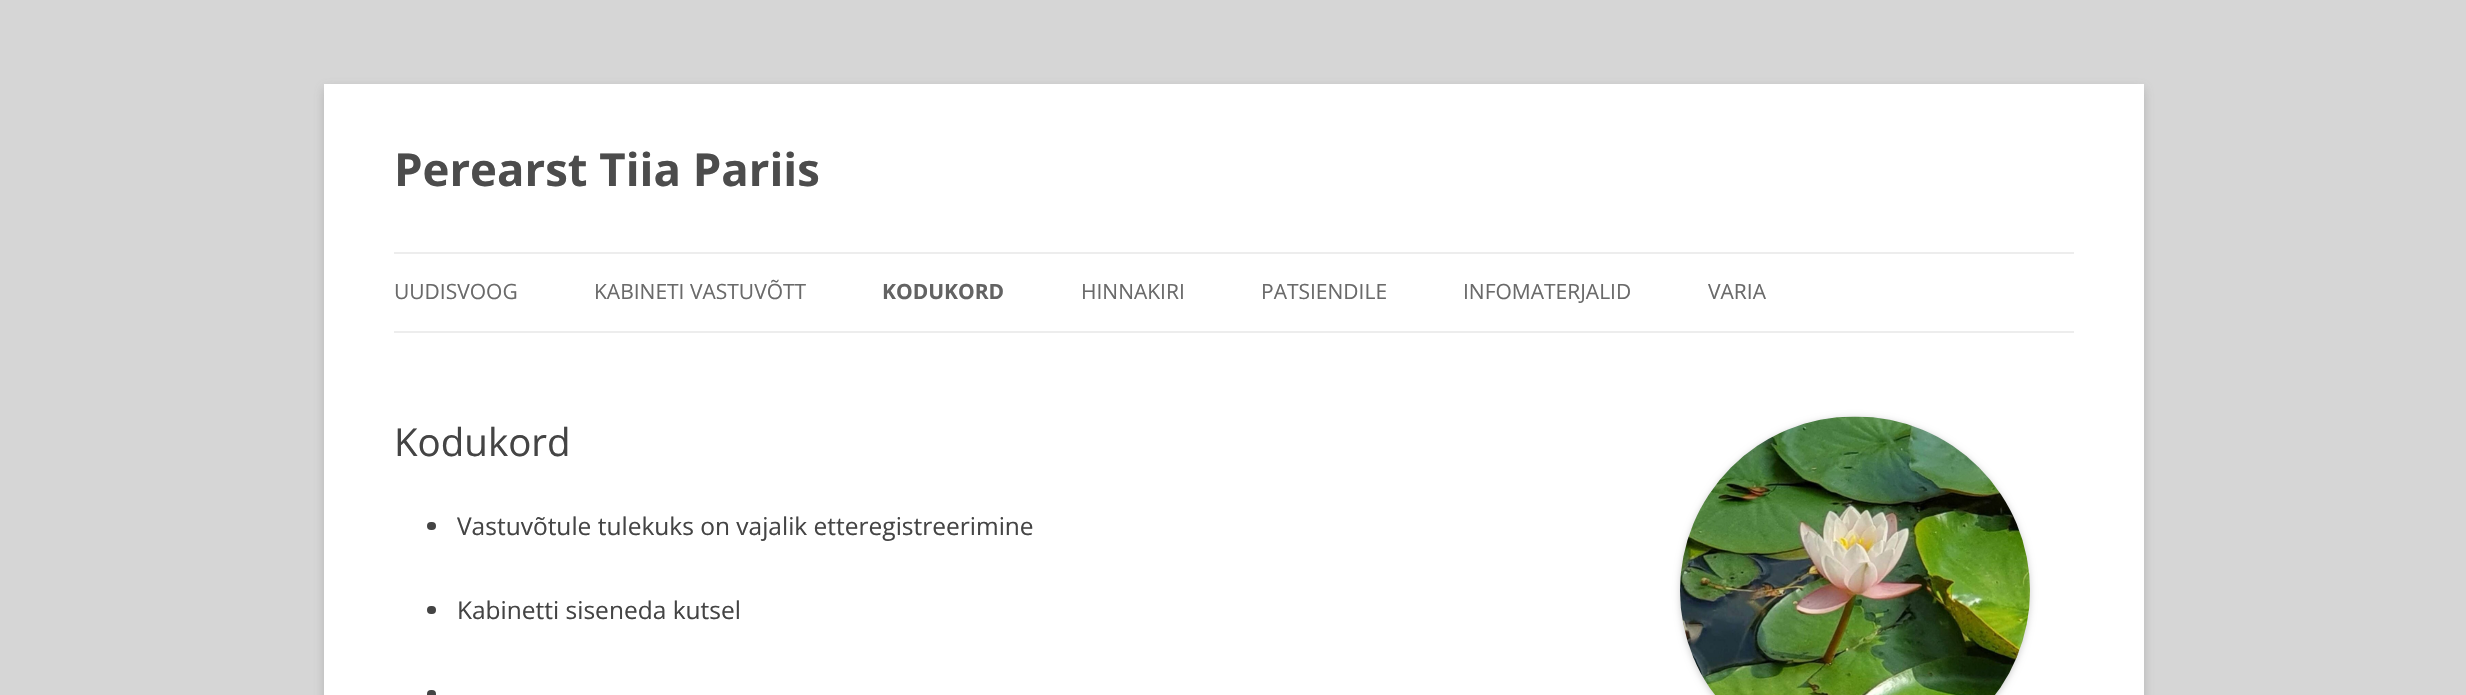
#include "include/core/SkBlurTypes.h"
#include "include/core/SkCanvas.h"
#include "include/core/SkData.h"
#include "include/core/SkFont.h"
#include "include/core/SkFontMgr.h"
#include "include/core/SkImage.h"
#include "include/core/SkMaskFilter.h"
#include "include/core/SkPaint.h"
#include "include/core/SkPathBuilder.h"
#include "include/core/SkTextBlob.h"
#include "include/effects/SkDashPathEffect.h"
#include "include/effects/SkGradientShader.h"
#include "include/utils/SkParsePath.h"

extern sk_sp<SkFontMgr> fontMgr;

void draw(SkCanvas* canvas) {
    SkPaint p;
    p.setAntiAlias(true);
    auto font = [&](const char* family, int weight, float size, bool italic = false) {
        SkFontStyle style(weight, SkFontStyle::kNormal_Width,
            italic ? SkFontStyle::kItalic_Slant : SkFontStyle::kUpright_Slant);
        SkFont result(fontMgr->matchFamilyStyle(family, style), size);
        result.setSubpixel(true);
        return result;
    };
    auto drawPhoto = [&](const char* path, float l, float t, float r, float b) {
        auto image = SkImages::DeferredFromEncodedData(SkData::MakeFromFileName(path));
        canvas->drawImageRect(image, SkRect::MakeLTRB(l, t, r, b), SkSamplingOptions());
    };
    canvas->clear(0xFFD6D6D6);
    p.setColor(0x4D646464);
    p.setMaskFilter(SkMaskFilter::MakeBlur(kNormal_SkBlurStyle, 5));
    canvas->drawRect(SkRect::MakeLTRB(324, 88, 2144, 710), p);
    p.setMaskFilter(nullptr);
    p.setColor(0xFFFFFFFF);
    canvas->drawRect(SkRect::MakeLTRB(324, 84, 2144, 695), p);
    auto font1 = font("Open Sans", 700, 45.5f);
    p.setColor(0xFF4C4C4C);
    canvas->drawString("Perearst Tiia Pariis", 394, 186, font1, p);
    p.setColor(0xFFEDEDED);
    canvas->drawRect(SkRect::MakeLTRB(394, 252, 2074, 254), p);
    canvas->drawRect(SkRect::MakeLTRB(394, 331, 2074, 333), p);
    auto font2 = font("Open Sans", 400, 21);
    p.setColor(0xFF6A6A6A);
    canvas->drawString("UUDISVOOG", 394, 299, font2, p);
    canvas->drawString("KABINETI VASTUVÕTT", 594, 299, font2, p);
    auto font3 = font("Open Sans", 700, 21);
    p.setColor(0xFF636363);
    canvas->drawString("KODUKORD", 882, 299, font3, p);
    p.setColor(0xFF6A6A6A);
    {
        const struct { const char* s; float x, y; } items[] = {
            {"HINNAKIRI", 1081, 299},
            {"PATSIENDILE", 1261, 299},
            {"INFOMATERJALID", 1463, 299},
            {"VARIA", 1708, 299},
        };
        for (auto [s, x, y] : items) {
            canvas->drawString(s, x, y, font2, p);
        }
    }
    auto font4 = font("Open Sans", 400, 38.5f);
    p.setColor(0xFF444444);
    canvas->drawString("Kodukord", 394, 456, font4, p);
    canvas->drawRoundRect(SkRect::MakeLTRB(427, 522, 436, 530), 4, 4, p);
    auto font5 = font("Open Sans", 400, 24.5f);
    canvas->drawString("Vastuvõtule tulekuks on vajalik etteregistreerimine", 457, 535, font5, p);
    canvas->drawRoundRect(SkRect::MakeLTRB(427, 606, 436, 614), 4, 4, p);
    canvas->drawString("Kabinetti siseneda kutsel", 457, 619, font5, p);
    canvas->drawRoundRect(SkRect::MakeLTRB(427, 690, 436, 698), 4, 4, p);
    p.setColor(0x33000000);
    p.setMaskFilter(SkMaskFilter::MakeBlur(kNormal_SkBlurStyle, 3.5f));
    canvas->drawRoundRect(SkRect::MakeLTRB(1680, 418, 2030, 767), 174.5f, 174.5f, p);
    p.setMaskFilter(nullptr);
    drawPhoto("media/1.png", 1680, 416, 2030, 695);
}
